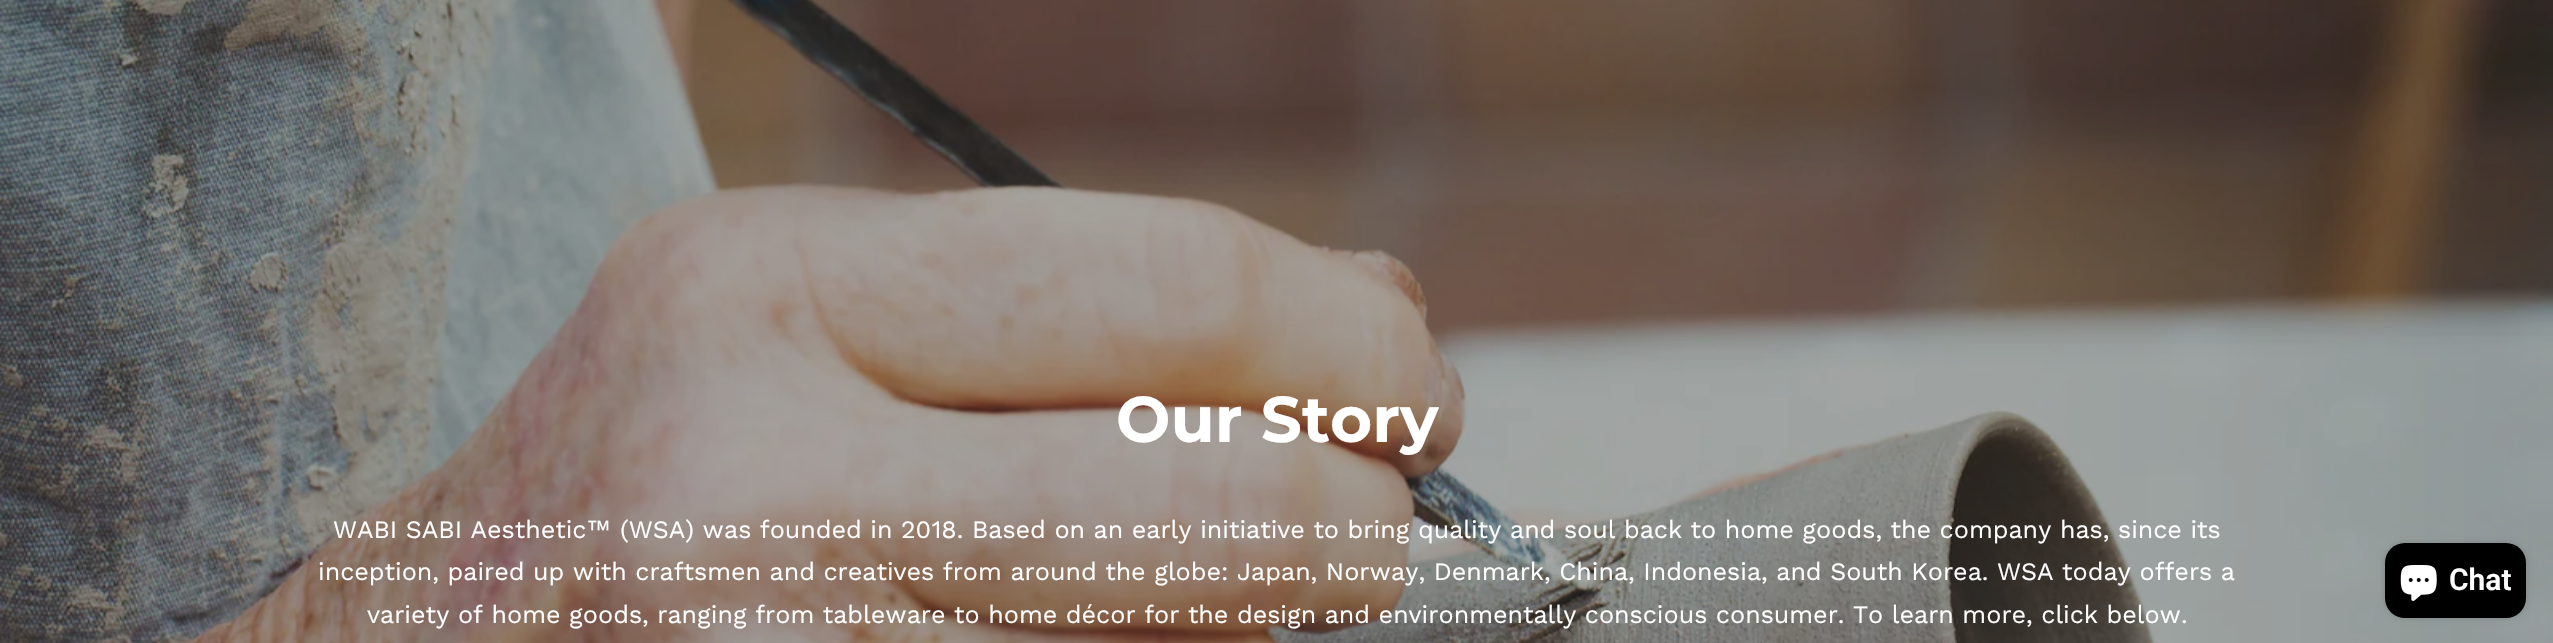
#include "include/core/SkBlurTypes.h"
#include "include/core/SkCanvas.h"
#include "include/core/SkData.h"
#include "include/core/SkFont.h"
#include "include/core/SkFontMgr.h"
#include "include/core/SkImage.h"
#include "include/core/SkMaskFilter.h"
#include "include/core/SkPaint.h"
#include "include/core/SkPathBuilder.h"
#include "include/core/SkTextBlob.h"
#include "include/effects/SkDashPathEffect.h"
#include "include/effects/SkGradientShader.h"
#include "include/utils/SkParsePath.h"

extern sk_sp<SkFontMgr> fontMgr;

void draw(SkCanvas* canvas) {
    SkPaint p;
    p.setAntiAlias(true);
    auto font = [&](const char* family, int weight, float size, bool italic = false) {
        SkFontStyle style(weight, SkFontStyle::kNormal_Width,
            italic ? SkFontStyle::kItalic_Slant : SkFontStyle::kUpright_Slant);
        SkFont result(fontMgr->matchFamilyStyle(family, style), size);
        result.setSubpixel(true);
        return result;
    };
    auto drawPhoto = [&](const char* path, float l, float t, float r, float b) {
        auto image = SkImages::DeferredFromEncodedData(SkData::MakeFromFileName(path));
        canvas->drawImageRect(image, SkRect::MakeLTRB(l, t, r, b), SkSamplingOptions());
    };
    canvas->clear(0xFFFFFFFF);
    drawPhoto("media/1.png", 0, 0, 2553, 643);
    auto font1 = font("Montserrat", 700, 64.5f);
    p.setColor(0xFFFFFFFF);
    canvas->drawString("Our Story", 1116, 442, font1, p);
    auto font2 = font("Work Sans", 400, 25);
    canvas->drawString("WABI SABI Aesthetic", 333, 538, font2, p);
    auto font3 = font("Liberation Sans", 400, 25);
    canvas->drawString("™", 586, 538, font3, p);
    {
        const struct { const char* s; float x, y; } items[] = {
            {"(WSA) was founded in 2018. Based on an early initiative to bring quality and soul back to home goods, the company has, since its", 620, 538},
            {"inception, paired up with craftsmen and creatives from around the globe: Japan, Norway, Denmark, China, Indonesia, and South Korea. WSA today offers a", 318, 580},
            {"variety of home goods, ranging from tableware to home décor for the design and environmentally conscious consumer. To learn more, click below.", 367, 623},
        };
        for (auto [s, x, y] : items) {
            canvas->drawString(s, x, y, font2, p);
        }
    }
    p.setColor(0x26000000);
    p.setMaskFilter(SkMaskFilter::MakeBlur(kNormal_SkBlurStyle, 3));
    canvas->drawRoundRect(SkRect::MakeLTRB(2385, 543, 2526, 618), 20, 20, p);
    p.setMaskFilter(nullptr);
    p.setColor(0xFF000000);
    canvas->drawRoundRect(SkRect::MakeLTRB(2385, 543, 2526, 618), 20, 20, p);
    drawPhoto("media/2.png", 2400, 565, 2437, 601);
    auto font4 = font("Roboto", 600, 30);
    p.setColor(0xFFFFFFFF);
    canvas->drawString("Chat", 2449, 590, font4, p);
}
